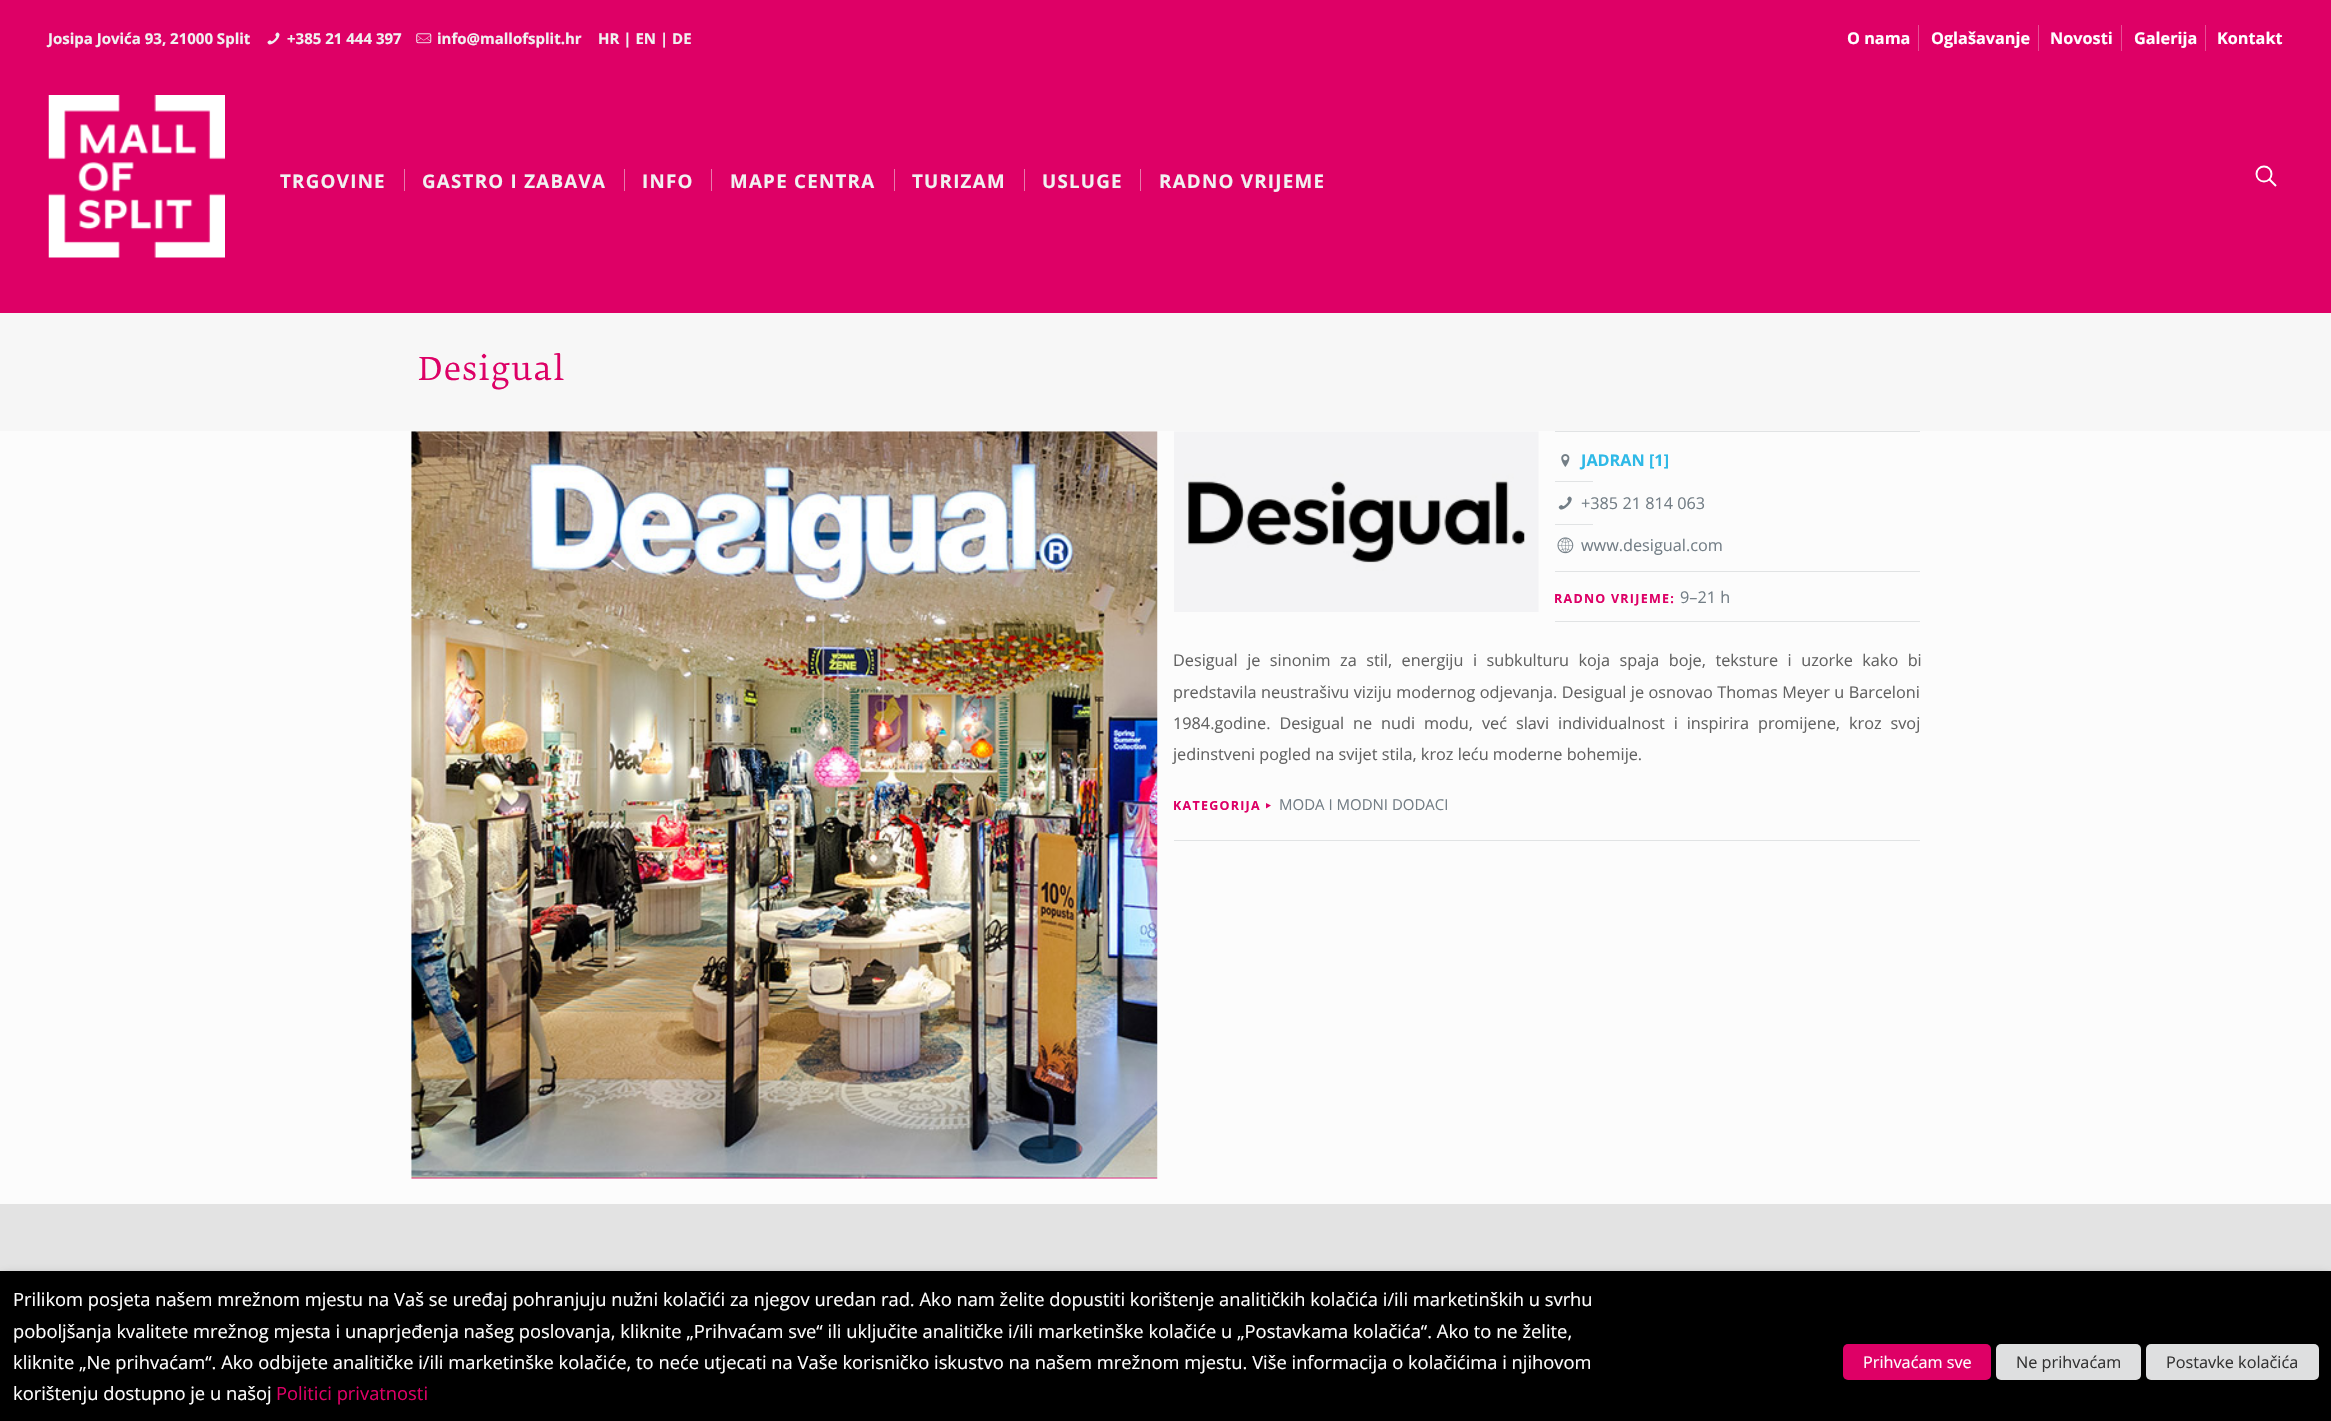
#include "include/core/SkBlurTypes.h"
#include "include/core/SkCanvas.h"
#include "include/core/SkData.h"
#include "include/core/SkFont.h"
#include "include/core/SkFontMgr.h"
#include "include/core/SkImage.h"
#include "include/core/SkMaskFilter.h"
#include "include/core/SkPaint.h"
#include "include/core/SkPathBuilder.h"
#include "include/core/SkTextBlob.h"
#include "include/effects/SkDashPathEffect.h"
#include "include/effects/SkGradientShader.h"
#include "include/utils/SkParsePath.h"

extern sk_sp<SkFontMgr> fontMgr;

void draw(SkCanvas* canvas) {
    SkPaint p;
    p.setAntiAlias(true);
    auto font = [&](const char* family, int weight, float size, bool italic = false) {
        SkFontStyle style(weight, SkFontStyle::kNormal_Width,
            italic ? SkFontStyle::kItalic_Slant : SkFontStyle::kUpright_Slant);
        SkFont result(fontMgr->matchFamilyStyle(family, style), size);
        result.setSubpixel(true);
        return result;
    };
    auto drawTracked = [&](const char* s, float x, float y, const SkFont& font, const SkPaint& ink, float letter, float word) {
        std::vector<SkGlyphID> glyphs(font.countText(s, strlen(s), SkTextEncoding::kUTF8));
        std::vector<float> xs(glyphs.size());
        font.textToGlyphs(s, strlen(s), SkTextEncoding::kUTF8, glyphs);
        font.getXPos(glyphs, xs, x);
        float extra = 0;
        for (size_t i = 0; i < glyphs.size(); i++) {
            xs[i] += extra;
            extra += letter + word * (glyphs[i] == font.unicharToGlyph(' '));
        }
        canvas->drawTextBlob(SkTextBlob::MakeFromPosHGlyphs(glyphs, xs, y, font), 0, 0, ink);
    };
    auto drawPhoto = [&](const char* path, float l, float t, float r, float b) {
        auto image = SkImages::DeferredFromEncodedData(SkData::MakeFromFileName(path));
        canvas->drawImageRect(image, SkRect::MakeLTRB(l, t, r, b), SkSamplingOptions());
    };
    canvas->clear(0xFFFCFCFC);
    p.setColor(0xFFDE0066);
    canvas->drawRect(SkRect::MakeLTRB(0, 0, 2331, 313), p);
    auto font1 = font("Open Sans", 700, 15);
    p.setColor(0xFFF1F1F1);
    canvas->drawString("Josipa Jovića 93, 21000 Split", 48, 44, font1, p);
    drawPhoto("media/1.png", 267, 32, 280, 45);
    canvas->drawString("+385 21 444 397", 287, 44, font1, p);
    drawPhoto("media/2.png", 416, 33, 432, 44);
    canvas->drawString("info@mallofsplit.hr", 437, 44, font1, p);
    canvas->drawString("HR | EN | DE", 598, 44, font1, p);
    p.setColor(0xFFE84D94);
    canvas->drawRect(SkRect::MakeLTRB(1918, 25, 1919, 51), p);
    auto font2 = font("Open Sans", 700, 16.25f);
    p.setColor(0xFFFFFFFF);
    canvas->drawString("O nama", 1847, 44, font2, p);
    p.setColor(0xFFE84D94);
    canvas->drawRect(SkRect::MakeLTRB(2038, 25, 2039, 51), p);
    p.setColor(0xFFFFFFFF);
    canvas->drawString("Oglašavanje", 1931, 44, font2, p);
    p.setColor(0xFFE84D94);
    canvas->drawRect(SkRect::MakeLTRB(2121, 25, 2122, 51), p);
    p.setColor(0xFFFFFFFF);
    canvas->drawString("Novosti", 2050, 44, font2, p);
    p.setColor(0xFFE84D94);
    canvas->drawRect(SkRect::MakeLTRB(2205, 25, 2206, 51), p);
    p.setColor(0xFFFFFFFF);
    canvas->drawString("Galerija", 2134, 44, font2, p);
    canvas->drawString("Kontakt", 2217, 44, font2, p);
    drawPhoto("media/3.png", 48, 95, 225, 258);
    p.setColor(0xFFE879AC);
    canvas->drawRect(SkRect::MakeLTRB(404, 169, 405, 191), p);
    auto font3 = font("Open Sans", 700, 18.75f);
    p.setColor(0xFFF1F1F1);
    drawTracked("TRGOVINE", 280, 188, font3, p, 1.25f, 0);
    p.setColor(0xFFE879AC);
    canvas->drawRect(SkRect::MakeLTRB(624, 169, 625, 191), p);
    p.setColor(0xFFF1F1F1);
    drawTracked("GASTRO I ZABAVA", 422, 188, font3, p, 1.25f, 0);
    p.setColor(0xFFE879AC);
    canvas->drawRect(SkRect::MakeLTRB(711, 169, 712, 191), p);
    p.setColor(0xFFF1F1F1);
    drawTracked("INFO", 642, 188, font3, p, 1.25f, 0);
    p.setColor(0xFFE879AC);
    canvas->drawRect(SkRect::MakeLTRB(894, 169, 895, 191), p);
    p.setColor(0xFFF1F1F1);
    drawTracked("MAPE CENTRA", 730, 188, font3, p, 1.25f, 0);
    p.setColor(0xFFE879AC);
    canvas->drawRect(SkRect::MakeLTRB(1024, 169, 1025, 191), p);
    p.setColor(0xFFF1F1F1);
    drawTracked("TURIZAM", 912, 188, font3, p, 1.25f, 0);
    p.setColor(0xFFE879AC);
    canvas->drawRect(SkRect::MakeLTRB(1140, 169, 1141, 191), p);
    p.setColor(0xFFF1F1F1);
    drawTracked("USLUGE", 1042, 188, font3, p, 1.25f, 0);
    drawTracked("RADNO VRIJEME", 1159, 188, font3, p, 1.25f, 0);
    p.setStyle(SkPaint::kStroke_Style);
    p.setStrokeWidth(1.9f);
    p.setColor(0xFFFFFFFF);
    canvas->drawCircle(2264, 174, 7.5f, p);
    canvas->drawPath(SkPathBuilder().moveTo(2269.5f, 179.5f).lineTo(2276, 186).detach(), p);
    p.setStyle(SkPaint::kFill_Style);
    p.setColor(0xFFF7F7F7);
    canvas->drawRect(SkRect::MakeLTRB(0, 313, 2331, 431), p);
    auto font4 = font("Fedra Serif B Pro", 400, 31.25f);
    p.setColor(0xFFDD0066);
    drawTracked("Desigual", 418, 380, font4, p, 1.25f, 0);
    drawPhoto("media/4.png", 411, 431, 1158, 1179);
    drawPhoto("media/5.png", 1174, 431, 1539, 612);
    p.setColor(0xFFE1E3E4);
    canvas->drawRect(SkRect::MakeLTRB(1555, 431, 1920, 432), p);
    drawPhoto("media/6.png", 1561, 454, 1570, 467);
    p.setColor(0xFF2EB9E7);
    canvas->drawString("JADRAN [1]", 1581, 466, font2, p);
    p.setColor(0xFFE1E3E4);
    canvas->drawRect(SkRect::MakeLTRB(1555, 481, 1593, 482), p);
    drawPhoto("media/7.png", 1558, 496, 1572, 510);
    auto font5 = font("Open Sans", 400, 16.25f);
    p.setColor(0xFF737E86);
    canvas->drawString("+385 21 814 063", 1581, 509, font5, p);
    p.setColor(0xFFE1E3E4);
    canvas->drawRect(SkRect::MakeLTRB(1555, 524, 1593, 525), p);
    drawPhoto("media/8.png", 1557, 537, 1574, 554);
    p.setColor(0xFF737E86);
    canvas->drawString("www.desigual.com", 1581, 551, font5, p);
    p.setColor(0xFFE1E3E4);
    canvas->drawRect(SkRect::MakeLTRB(1555, 571, 1920, 572), p);
    auto font6 = font("Open Sans", 700, 12.5f);
    p.setColor(0xFFDD0066);
    drawTracked("RADNO VRIJEME:", 1554, 603, font6, p, 1.25f, 0);
    p.setColor(0xFF737E86);
    canvas->drawString("9–21 h", 1680, 603, font5, p);
    p.setColor(0xFFE1E3E4);
    canvas->drawRect(SkRect::MakeLTRB(1555, 621, 1920, 622), p);
    p.setColor(0xFF626262);
    drawTracked("Desigual je sinonim za stil, energiju i subkulturu koja spaja boje, teksture i uzorke kako bi", 1173, 666, font5, p, 0, 5.25f);
    drawTracked("predstavila neustrašivu viziju modernog odjevanja. Desigual je osnovao Thomas Meyer u Barceloni", 1173, 698, font5, p, 0, 0.25f);
    drawTracked("1984.godine. Desigual ne nudi modu, već slavi individualnost i inspirira promijene, kroz svoj", 1173, 729, font5, p, 0, 4.75f);
    canvas->drawString("jedinstveni pogled na svijet stila, kroz leću moderne bohemije.", 1173, 760, font5, p);
    p.setColor(0xFFDD0066);
    drawTracked("KATEGORIJA", 1173, 810, font6, p, 1.25f, 0);
    canvas->drawPath(SkPathBuilder().moveTo(1266, 803).lineTo(1271, 805.5f).lineTo(1266, 808.5f).close().detach(), p);
    auto font7 = font("Open Sans", 400, 15);
    p.setColor(0xFF737E86);
    canvas->drawString("MODA I MODNI DODACI", 1279, 810, font7, p);
    p.setColor(0xFFE1E3E4);
    canvas->drawRect(SkRect::MakeLTRB(1174, 840, 1920, 841), p);
    p.setColor(0xFFE3E3E3);
    canvas->drawRect(SkRect::MakeLTRB(0, 1204, 2331, 1271), p);
    p.setColor(0x80000000);
    p.setMaskFilter(SkMaskFilter::MakeBlur(kNormal_SkBlurStyle, 6));
    canvas->drawRect(SkRect::MakeLTRB(0, 1278, 2331, 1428), p);
    p.setMaskFilter(nullptr);
    p.setColor(0xFF000000);
    canvas->drawRect(SkRect::MakeLTRB(0, 1271, 2331, 1421), p);
    auto font8 = font("Open Sans", 400, 18.33f);
    p.setColor(0xFFFFFFFF);
    {
        const struct { const char* s; float x, y; } items[] = {
            {"Prilikom posjeta našem mrežnom mjestu na Vaš se uređaj pohranjuju nužni kolačići za njegov uredan rad. Ako nam želite dopustiti korištenje analitičkih kolačića i/ili marketinških u svrhu", 13, 1306},
            {"poboljšanja kvalitete mrežnog mjesta i unaprjeđenja našeg poslovanja, kliknite „Prihvaćam sve“ ili uključite analitičke i/ili marketinške kolačiće u „Postavkama kolačića“. Ako to ne želite,", 13, 1338},
            {"kliknite „Ne prihvaćam“. Ako odbijete analitičke i/ili marketinške kolačiće, to neće utjecati na Vaše korisničko iskustvo na našem mrežnom mjestu. Više informacija o kolačićima i njihovom", 13, 1369},
            {"korištenju dostupno je u našoj", 13, 1400},
        };
        for (auto [s, x, y] : items) {
            canvas->drawString(s, x, y, font8, p);
        }
    }
    p.setColor(0xFFDD0066);
    canvas->drawString("Politici privatnosti", 276, 1400, font8, p);
    p.setColor(0xFFDE0066);
    canvas->drawRoundRect(SkRect::MakeLTRB(1843, 1344, 1991, 1380), 5, 5, p);
    p.setColor(0xFFFFFFFF);
    canvas->drawString("Prihvaćam sve", 1863, 1368, font5, p);
    p.setColor(0xFFDEDFE0);
    canvas->drawRoundRect(SkRect::MakeLTRB(1996, 1344, 2141, 1380), 5, 5, p);
    p.setColor(0xFF333333);
    canvas->drawString("Ne prihvaćam", 2016, 1368, font5, p);
    p.setColor(0xFFDEDFE0);
    canvas->drawRoundRect(SkRect::MakeLTRB(2146, 1344, 2319, 1380), 5, 5, p);
    p.setColor(0xFF333333);
    canvas->drawString("Postavke kolačića", 2166, 1368, font5, p);
}
